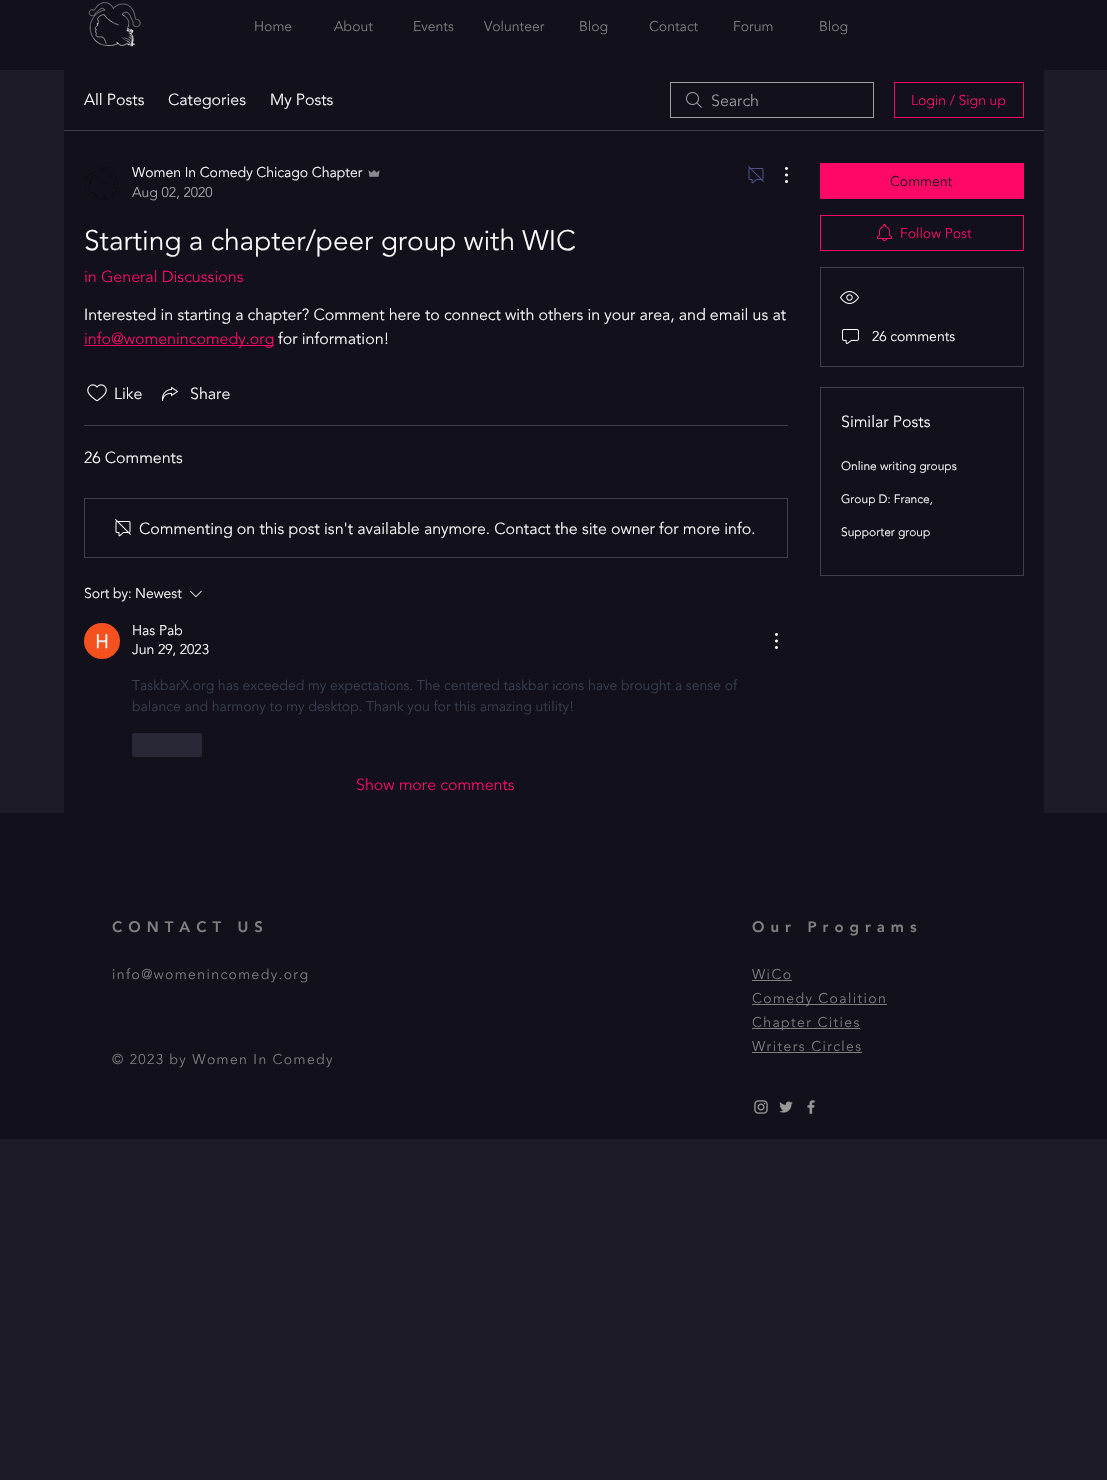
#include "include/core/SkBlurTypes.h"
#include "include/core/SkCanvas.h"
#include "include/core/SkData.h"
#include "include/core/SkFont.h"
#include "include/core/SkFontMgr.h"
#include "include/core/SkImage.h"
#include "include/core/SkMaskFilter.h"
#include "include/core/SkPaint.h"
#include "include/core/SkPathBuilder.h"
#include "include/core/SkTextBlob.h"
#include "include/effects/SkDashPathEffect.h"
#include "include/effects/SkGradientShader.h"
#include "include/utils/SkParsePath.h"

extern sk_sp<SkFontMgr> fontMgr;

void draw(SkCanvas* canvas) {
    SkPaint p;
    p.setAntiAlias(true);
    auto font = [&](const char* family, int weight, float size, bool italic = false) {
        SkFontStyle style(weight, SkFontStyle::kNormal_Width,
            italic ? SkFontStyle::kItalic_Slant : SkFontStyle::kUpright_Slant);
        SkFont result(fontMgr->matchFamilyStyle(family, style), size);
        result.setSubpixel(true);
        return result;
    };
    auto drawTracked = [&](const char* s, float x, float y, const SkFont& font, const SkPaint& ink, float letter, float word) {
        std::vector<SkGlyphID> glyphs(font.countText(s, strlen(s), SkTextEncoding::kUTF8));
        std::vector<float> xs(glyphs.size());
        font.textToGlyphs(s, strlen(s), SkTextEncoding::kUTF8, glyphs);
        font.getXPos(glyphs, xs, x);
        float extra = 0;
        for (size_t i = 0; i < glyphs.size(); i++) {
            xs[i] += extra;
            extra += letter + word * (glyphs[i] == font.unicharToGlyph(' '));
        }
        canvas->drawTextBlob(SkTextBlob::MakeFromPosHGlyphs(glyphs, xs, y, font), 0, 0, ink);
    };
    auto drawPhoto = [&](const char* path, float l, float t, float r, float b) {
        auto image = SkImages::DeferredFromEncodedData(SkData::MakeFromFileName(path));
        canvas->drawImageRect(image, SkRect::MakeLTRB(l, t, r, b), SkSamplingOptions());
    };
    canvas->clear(0xFF1D1B26);
    p.setColor(0xFF12101B);
    canvas->drawRect(SkRect::MakeLTRB(0, 0, 1107, 70), p);
    drawPhoto("media/1.png", 88, 2, 141, 47);
    auto font1 = font("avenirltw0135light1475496", 300, 14);
    p.setColor(0xFF808080);
    {
        const struct { const char* s; float x, y; } items[] = {
            {"Home", 254, 31},
            {"About", 334, 31},
            {"Events", 413, 31},
            {"Volunteer", 484, 31},
            {"Blog", 579, 31},
            {"Contact", 649, 31},
            {"Forum", 733, 31},
            {"Blog", 819, 31},
        };
        for (auto [s, x, y] : items) {
            canvas->drawString(s, x, y, font1, p);
        }
    }
    p.setColor(0xFF12101B);
    canvas->drawRect(SkRect::MakeLTRB(64, 70, 1044, 813), p);
    p.setColor(0xFF414049);
    canvas->drawRect(SkRect::MakeLTRB(64, 130, 1044, 131), p);
    auto font2 = font("avenirltw0135light1475496", 300, 16);
    p.setColor(0xFFFFFFFF);
    {
        const struct { const char* s; float x, y; } items[] = {
            {"All Posts", 84, 105},
            {"Categories", 168, 105},
            {"My Posts", 270, 105},
        };
        for (auto [s, x, y] : items) {
            canvas->drawString(s, x, y, font2, p);
        }
    }
    drawPhoto("media/2.png", 686, 92, 702, 108);
    p.setStyle(SkPaint::kStroke_Style);
    p.setStrokeWidth(1);
    p.setColor(0xFFA09FA4);
    canvas->drawRect(SkRect::MakeLTRB(670.5f, 82.5f, 873.5f, 117.5f), p);
    p.setStyle(SkPaint::kFill_Style);
    canvas->drawString("Search", 711, 106, font2, p);
    p.setStyle(SkPaint::kStroke_Style);
    p.setColor(0xFFFE0865);
    canvas->drawRect(SkRect::MakeLTRB(894.5f, 82.5f, 1023.5f, 117.5f), p);
    p.setStyle(SkPaint::kFill_Style);
    canvas->drawString("Login / Sign up", 911, 105, font1, p);
    drawPhoto("media/3.png", 85, 166, 120, 200);
    p.setColor(0xFFFFFFFF);
    canvas->drawString("Women In Comedy Chicago Chapter", 132, 177, font1, p);
    drawPhoto("media/4.png", 368, 170, 380, 177);
    p.setColor(0xFFAAA9AD);
    canvas->drawString("Aug 02, 2020", 132, 197, font1, p);
    drawPhoto("media/5.png", 748, 166, 764, 184);
    drawPhoto("media/6.png", 785, 167, 788, 183);
    auto font3 = font("avenirltw0135light1475496", 300, 28);
    p.setColor(0xFFFFFFFF);
    canvas->drawString("Starting a chapter/peer group with WIC", 84, 250, font3, p);
    p.setColor(0xFFFE0865);
    canvas->drawString("in General Discussions", 84, 282, font2, p);
    p.setColor(0xFFFFFFFF);
    canvas->drawString("Interested in starting a chapter? Comment here to connect with others in your area, and email us at", 84, 320, font2, p);
    p.setColor(0xFFFE0865);
    canvas->drawRect(SkRect::MakeLTRB(84, 345, 274, 346), p);
    canvas->drawString("info@womenincomedy.org", 84, 344, font2, p);
    p.setColor(0xFFFFFFFF);
    canvas->drawString("for information!", 278, 344, font2, p);
    drawPhoto("media/7.png", 87, 384, 107, 402);
    canvas->drawString("Like", 114, 399, font2, p);
    drawPhoto("media/8.png", 162, 387, 178, 401);
    canvas->drawString("Share", 190, 399, font2, p);
    p.setColor(0xFF414049);
    canvas->drawRect(SkRect::MakeLTRB(84, 425, 788, 426), p);
    p.setColor(0xFFFFFFFF);
    canvas->drawString("26 Comments", 84, 463, font2, p);
    p.setStyle(SkPaint::kStroke_Style);
    p.setColor(0xFF414049);
    canvas->drawRect(SkRect::MakeLTRB(84.5f, 498.5f, 787.5f, 557.5f), p);
    drawPhoto("media/9.png", 115, 519, 131, 537);
    p.setStyle(SkPaint::kFill_Style);
    p.setColor(0xFFFFFFFF);
    canvas->drawString("Commenting on this post isn't available anymore. Contact the site owner for more info.", 139, 534, font2, p);
    canvas->drawString("Sort by:", 84, 598, font1, p);
    canvas->drawString("Newest", 135, 598, font1, p);
    drawPhoto("media/10.png", 190, 590, 202, 598);
    drawPhoto("media/11.png", 84, 623, 120, 659);
    canvas->drawString("Has Pab", 132, 635, font1, p);
    canvas->drawString("Jun 29, 2023", 132, 654, font1, p);
    drawPhoto("media/12.png", 775, 633, 778, 649);
    p.setColor(0xFF374151);
    canvas->drawString("TaskbarX.org has exceeded my expectations. The centered taskbar icons have brought a sense of", 132, 690, font1, p);
    canvas->drawString("balance and harmony to my desktop. Thank you for this amazing utility!", 132, 711, font1, p);
    p.setColor(0xFF292837);
    canvas->drawRoundRect(SkRect::MakeLTRB(132, 733, 202, 757), 2, 2, p);
    p.setColor(0xFFFE0865);
    canvas->drawString("Show more comments", 356, 790, font2, p);
    canvas->drawRect(SkRect::MakeLTRB(820, 163, 1024, 199), p);
    p.setColor(0xFF12101B);
    canvas->drawString("Comment", 890, 186, font1, p);
    p.setStyle(SkPaint::kStroke_Style);
    p.setColor(0xFFFE0865);
    canvas->drawRect(SkRect::MakeLTRB(820.5f, 215.5f, 1023.5f, 250.5f), p);
    drawPhoto("media/13.png", 877, 224, 892, 241);
    p.setStyle(SkPaint::kFill_Style);
    canvas->drawString("Follow Post", 900, 238, font1, p);
    p.setStyle(SkPaint::kStroke_Style);
    p.setColor(0xFF414049);
    canvas->drawRect(SkRect::MakeLTRB(820.5f, 267.5f, 1023.5f, 366.5f), p);
    drawPhoto("media/14.png", 840, 291, 859, 304);
    drawPhoto("media/15.png", 842, 329, 859, 344);
    p.setStyle(SkPaint::kFill_Style);
    p.setColor(0xFFFFFFFF);
    canvas->drawString("26 comments", 872, 341, font1, p);
    p.setStyle(SkPaint::kStroke_Style);
    p.setColor(0xFF414049);
    canvas->drawRect(SkRect::MakeLTRB(820.5f, 387.5f, 1023.5f, 575.5f), p);
    p.setStyle(SkPaint::kFill_Style);
    p.setColor(0xFFFFFFFF);
    canvas->drawString("Similar Posts", 841, 427, font2, p);
    auto font4 = font("avenirltw0135light1475496", 300, 12);
    {
        const struct { const char* s; float x, y; } items[] = {
            {"Online writing groups", 841, 470},
            {"Group D: France,", 841, 503},
            {"Supporter group", 841, 536},
        };
        for (auto [s, x, y] : items) {
            canvas->drawString(s, x, y, font4, p);
        }
    }
    p.setColor(0xFF12101B);
    canvas->drawRect(SkRect::MakeLTRB(0, 813, 1107, 1139), p);
    auto font5 = font("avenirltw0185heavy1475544", 900, 15);
    p.setColor(0xFF808080);
    drawTracked("CONTACT US", 112, 932, font5, p, 6, 0);
    drawTracked("Our Programs", 752, 932, font5, p, 6, 0);
    drawTracked("info@womenincomedy.org", 112, 979, font1, p, 1.4f, 0);
    drawTracked("WiCo", 752, 979, font1, p, 1.4f, 0);
    canvas->drawRect(SkRect::MakeLTRB(752, 980, 792, 981), p);
    canvas->drawRect(SkRect::MakeLTRB(752, 1004, 887, 1005), p);
    drawTracked("Comedy Coalition", 752, 1003, font1, p, 1.4f, 0);
    canvas->drawRect(SkRect::MakeLTRB(752, 1028, 860, 1029), p);
    drawTracked("Chapter Cities", 752, 1027, font1, p, 1.4f, 0);
    drawTracked("Writers Circles", 752, 1051, font1, p, 1.4f, 0);
    canvas->drawRect(SkRect::MakeLTRB(752, 1052, 862, 1053), p);
    drawTracked("© 2023 by Women In Comedy", 112, 1064, font1, p, 1.4f, 0);
    drawPhoto("media/16.png", 754, 1100, 768, 1114);
    drawPhoto("media/17.png", 779, 1101, 793, 1113);
    drawPhoto("media/18.png", 807, 1100, 815, 1114);
}
